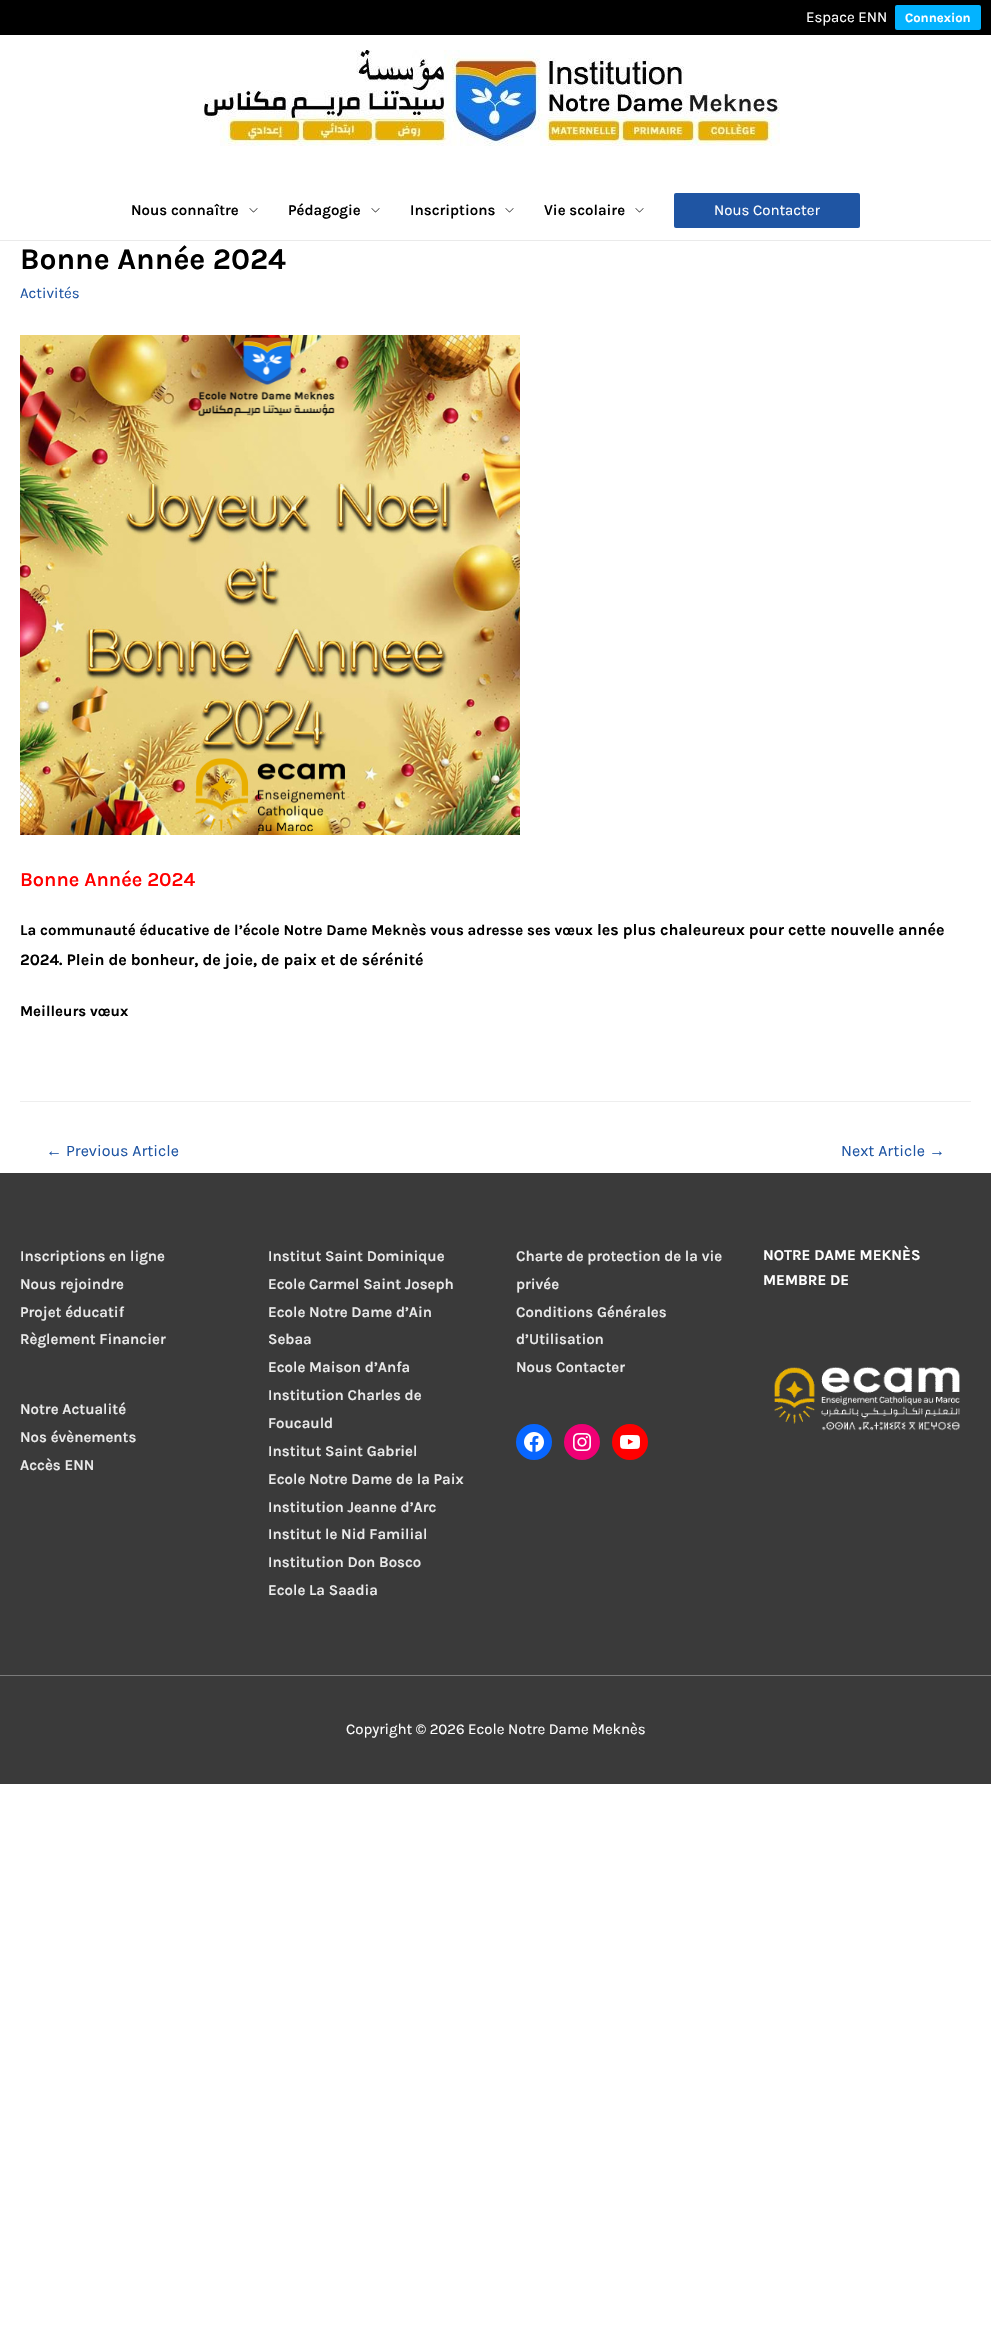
#include "include/core/SkBlurTypes.h"
#include "include/core/SkCanvas.h"
#include "include/core/SkData.h"
#include "include/core/SkFont.h"
#include "include/core/SkFontMgr.h"
#include "include/core/SkImage.h"
#include "include/core/SkMaskFilter.h"
#include "include/core/SkPaint.h"
#include "include/core/SkPathBuilder.h"
#include "include/core/SkTextBlob.h"
#include "include/effects/SkDashPathEffect.h"
#include "include/effects/SkGradientShader.h"
#include "include/utils/SkParsePath.h"

extern sk_sp<SkFontMgr> fontMgr;

void draw(SkCanvas* canvas) {
    SkPaint p;
    p.setAntiAlias(true);
    auto font = [&](const char* family, int weight, float size, bool italic = false) {
        SkFontStyle style(weight, SkFontStyle::kNormal_Width,
            italic ? SkFontStyle::kItalic_Slant : SkFontStyle::kUpright_Slant);
        SkFont result(fontMgr->matchFamilyStyle(family, style), size);
        result.setSubpixel(true);
        return result;
    };
    auto drawPhoto = [&](const char* path, float l, float t, float r, float b) {
        auto image = SkImages::DeferredFromEncodedData(SkData::MakeFromFileName(path));
        canvas->drawImageRect(image, SkRect::MakeLTRB(l, t, r, b), SkSamplingOptions());
    };
    canvas->clear(0xFFFFFFFF);
    p.setColor(0xFF000000);
    canvas->drawRect(SkRect::MakeLTRB(0, 0, 991, 35), p);
    auto font1 = font("Karla", 400, 15);
    p.setColor(0xFFFFFFFF);
    canvas->drawString("Espace ENN", 806, 22, font1, p);
    p.setColor(0xFF03B3FF);
    canvas->drawRoundRect(SkRect::MakeLTRB(895, 5, 981, 30), 2, 2, p);
    auto font2 = font("Karla", 700, 13);
    p.setColor(0xFFFFFFFF);
    canvas->drawString("Connexion", 905, 22, font2, p);
    p.setColor(0xFFEAEAEA);
    canvas->drawRect(SkRect::MakeLTRB(0, 240, 991, 241), p);
    drawPhoto("media/1.png", 204, 50, 780, 146);
    auto font3 = font("Karla", 600, 15);
    p.setColor(0xFF000000);
    canvas->drawString("Nous connaître", 131, 215, font3, p);
    drawPhoto("media/2.png", 249, 208, 258, 213);
    canvas->drawString("Pédagogie", 288, 215, font3, p);
    drawPhoto("media/2.png", 371, 208, 380, 213);
    canvas->drawString("Inscriptions", 410, 215, font3, p);
    drawPhoto("media/2.png", 505, 208, 514, 213);
    canvas->drawString("Vie scolaire", 544, 215, font3, p);
    drawPhoto("media/2.png", 635, 208, 644, 213);
    p.setColor(0xFF1F55A3);
    canvas->drawRoundRect(SkRect::MakeLTRB(674, 193, 860, 228), 2, 2, p);
    p.setColor(0xFFFFFFFF);
    canvas->drawString("Nous Contacter", 714, 215, font1, p);
    auto font4 = font("Karla", 700, 30);
    p.setColor(0xFF000000);
    canvas->drawString("Bonne Année 2024", 20, 269, font4, p);
    p.setColor(0xFF1F55A3);
    canvas->drawString("Activités", 20, 298, font1, p);
    drawPhoto("media/3.png", 20, 335, 520, 835);
    auto font5 = font("Karla", 600, 20);
    p.setColor(0xFFFF0000);
    canvas->drawString("Bonne Année 2024", 20, 886, font5, p);
    auto font6 = font("Karla", 700, 15);
    p.setColor(0xFF000000);
    canvas->drawString("La communauté éducative de l’école Notre Dame Meknès vous adresse ses vœux", 20, 935, font6, p);
    auto font7 = font("Karla", 700, 16);
    canvas->drawString("les plus chaleureux pour cette nouvelle année", 597, 935, font7, p);
    canvas->drawString("2024. Plein de bonheur, de joie, de paix et de sérénité", 20, 965, font7, p);
    canvas->drawString("Meilleurs vœux", 20, 1016, font6, p);
    p.setColor(0xFFEEEEEE);
    canvas->drawRect(SkRect::MakeLTRB(20, 1101, 971, 1102), p);
    auto font8 = font("Liberation Serif", 400, 16);
    p.setColor(0xFF1F55A3);
    canvas->drawString("←", 46, 1156, font8, p);
    auto font9 = font("Karla", 400, 16);
    canvas->drawString("Previous Article", 66, 1156, font9, p);
    canvas->drawString("Next Article", 841, 1156, font9, p);
    canvas->drawString("→", 929, 1156, font8, p);
    p.setColor(0xFF3A3A3A);
    canvas->drawRect(SkRect::MakeLTRB(0, 1173, 991, 1675), p);
    p.setColor(0xFFEAEAEA);
    {
        const struct { const char* s; float x, y; } items[] = {
            {"Inscriptions en ligne", 20, 1261},
            {"Nous rejoindre", 20, 1289},
            {"Projet éducatif", 20, 1317},
            {"Règlement Financier", 20, 1344},
            {"Notre Actualité", 20, 1414},
            {"Nos évènements", 20, 1442},
            {"Accès ENN", 20, 1470},
            {"Institut Saint Dominique", 268, 1261},
            {"Ecole Carmel Saint Joseph", 268, 1289},
            {"Ecole Notre Dame d’Ain", 268, 1317},
            {"Sebaa", 268, 1344},
            {"Ecole Maison d’Anfa", 268, 1372},
            {"Institution Charles de", 268, 1400},
            {"Foucauld", 268, 1428},
            {"Institut Saint Gabriel", 268, 1456},
            {"Ecole Notre Dame de la Paix", 268, 1484},
            {"Institution Jeanne d’Arc", 268, 1512},
            {"Institut le Nid Familial", 268, 1539},
            {"Institution Don Bosco", 268, 1567},
            {"Ecole La Saadia", 268, 1595},
            {"Charte de protection de la vie", 516, 1261},
            {"privée", 516, 1289},
            {"Conditions Générales", 516, 1317},
            {"d’Utilisation", 516, 1344},
            {"Nous Contacter", 516, 1372},
        };
        for (auto [s, x, y] : items) {
            canvas->drawString(s, x, y, font3, p);
        }
    }
    p.setColor(0xFF0866FF);
    canvas->drawCircle(534, 1442, 18, p);
    drawPhoto("media/4.png", 524, 1432, 544, 1452);
    p.setColor(0xFFF00075);
    canvas->drawCircle(582, 1442, 18, p);
    drawPhoto("media/5.png", 573, 1433, 591, 1451);
    p.setColor(0xFFFF0000);
    canvas->drawCircle(630, 1442, 18, p);
    drawPhoto("media/6.png", 620, 1435, 640, 1449);
    p.setColor(0xFFFFFFFF);
    canvas->drawString("NOTRE DAME MEKNÈS", 763, 1260, font6, p);
    canvas->drawString("MEMBRE DE", 763, 1285, font6, p);
    drawPhoto("media/7.png", 774, 1367, 960, 1431);
    p.setColor(0xFF7A7A7A);
    canvas->drawRect(SkRect::MakeLTRB(0, 1675, 991, 1676), p);
    p.setColor(0xFF3A3A3A);
    canvas->drawRect(SkRect::MakeLTRB(0, 1676, 991, 1784), p);
    p.setColor(0xFFFFFFFF);
    canvas->drawString("Copyright © 2026 Ecole Notre Dame Meknès", 346, 1734, font1, p);
}
